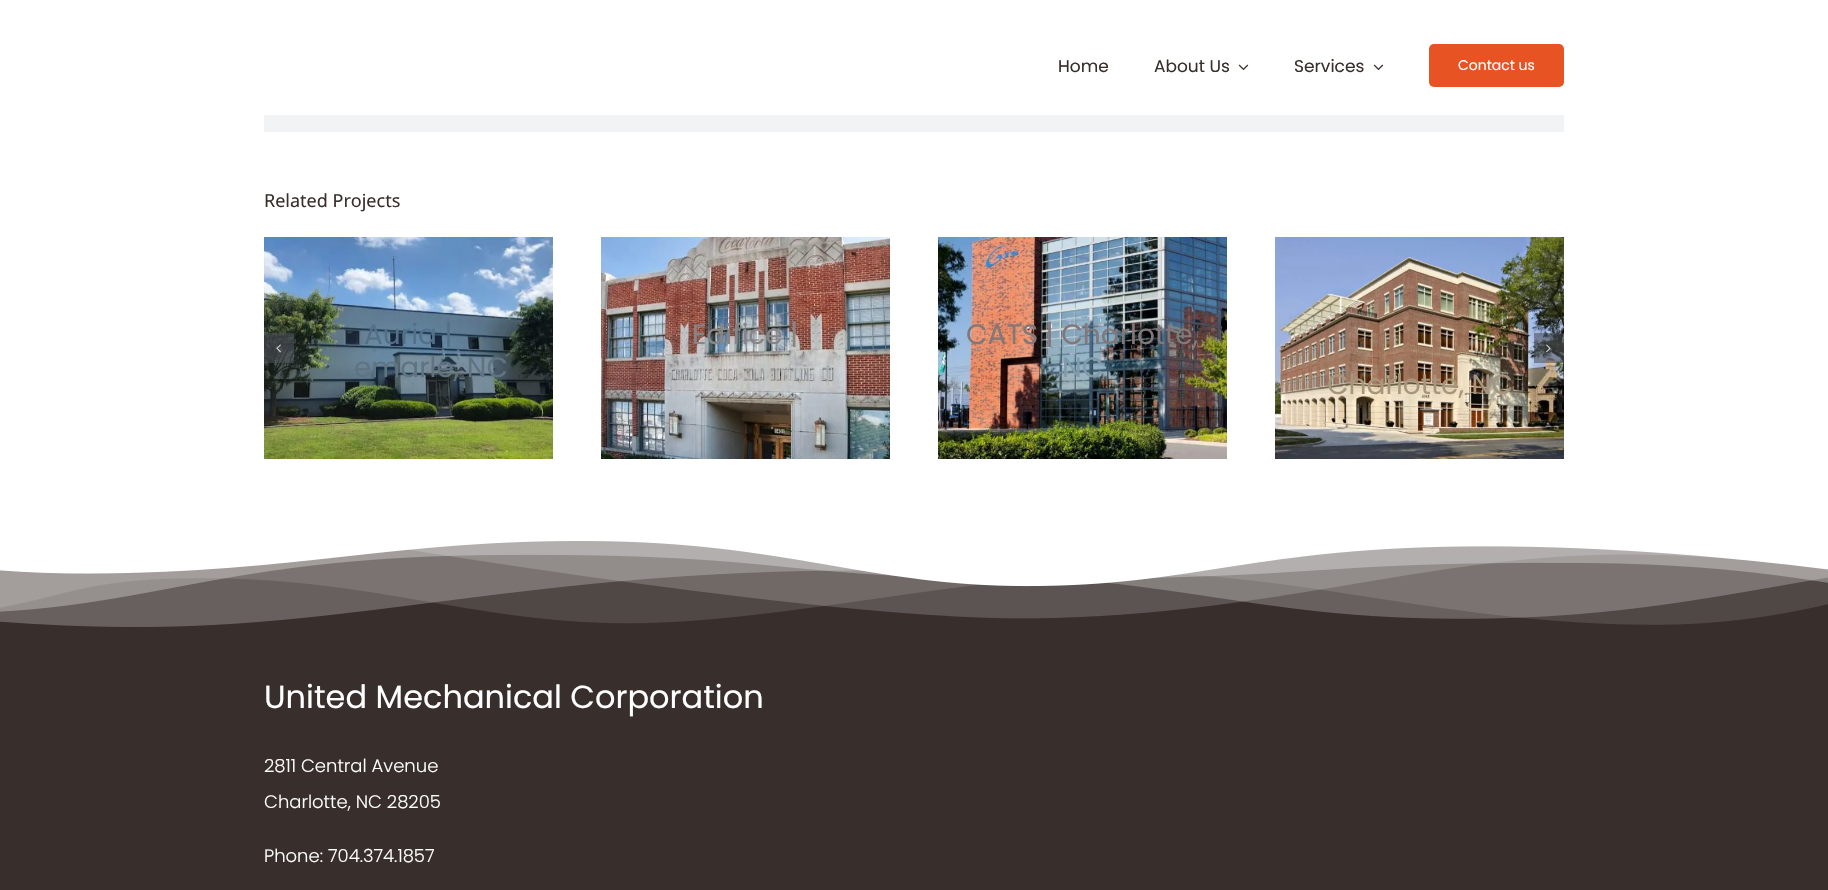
#include "include/core/SkBlurTypes.h"
#include "include/core/SkCanvas.h"
#include "include/core/SkData.h"
#include "include/core/SkFont.h"
#include "include/core/SkFontMgr.h"
#include "include/core/SkImage.h"
#include "include/core/SkMaskFilter.h"
#include "include/core/SkPaint.h"
#include "include/core/SkPathBuilder.h"
#include "include/core/SkTextBlob.h"
#include "include/effects/SkDashPathEffect.h"
#include "include/effects/SkGradientShader.h"
#include "include/utils/SkParsePath.h"

extern sk_sp<SkFontMgr> fontMgr;

void draw(SkCanvas* canvas) {
    SkPaint p;
    p.setAntiAlias(true);
    auto font = [&](const char* family, int weight, float size, bool italic = false) {
        SkFontStyle style(weight, SkFontStyle::kNormal_Width,
            italic ? SkFontStyle::kItalic_Slant : SkFontStyle::kUpright_Slant);
        SkFont result(fontMgr->matchFamilyStyle(family, style), size);
        result.setSubpixel(true);
        return result;
    };
    auto drawPhoto = [&](const char* path, float l, float t, float r, float b) {
        auto image = SkImages::DeferredFromEncodedData(SkData::MakeFromFileName(path));
        canvas->drawImageRect(image, SkRect::MakeLTRB(l, t, r, b), SkSamplingOptions());
    };
    canvas->clear(0xFFFFFFFF);
    auto font1 = font("Poppins", 400, 17);
    p.setColor(0xFF382E2B);
    canvas->drawString("Home", 1058, 72, font1, p);
    canvas->drawString("About Us", 1154, 72, font1, p);
    drawPhoto("media/1.png", 1238, 64, 1249, 71);
    canvas->drawString("Services", 1294, 72, font1, p);
    drawPhoto("media/1.png", 1373, 64, 1384, 71);
    p.setColor(0xFFE75323);
    canvas->drawRoundRect(SkRect::MakeLTRB(1429, 44, 1564, 87), 5, 5, p);
    auto font2 = font("Poppins", 400, 14);
    p.setColor(0xFFFFFFFF);
    canvas->drawString("Contact us", 1458, 70, font2, p);
    p.setColor(0xFFF2F3F5);
    canvas->drawRect(SkRect::MakeLTRB(264, 115, 1564, 132), p);
    auto font3 = font("Noto Sans", 400, 18);
    p.setColor(0xFF382E2B);
    canvas->drawString("Related Projects", 264, 207, font3, p);
    drawPhoto("media/3.png", 264, 237, 553, 459);
    p.setColor(0x8F4B4F58);
    canvas->drawRect(SkRect::MakeLTRB(264, 333, 294, 363), p);
    drawPhoto("media/2.png", 276, 344, 281, 353);
    auto font4 = font("Poppins", 400, 28);
    p.setColor(0xFF537088);
    canvas->drawString("Auria |", 364, 344, font4, p);
    p.setColor(0xFF5F7480);
    canvas->drawString("emarle, NC", 354, 377, font4, p);
    drawPhoto("media/4.png", 601, 237, 890, 459);
    p.setColor(0xFF898586);
    canvas->drawString("Edifice |", 692, 344, font4, p);
    drawPhoto("media/5.png", 938, 237, 1227, 459);
    p.setColor(0xFF837778);
    canvas->drawString("CATS | Charlotte,", 966, 344, font4, p);
    p.setColor(0xFF809BAB);
    canvas->drawString("NC", 1062, 377, font4, p);
    drawPhoto("media/6.png", 1275, 237, 1564, 459);
    p.setColor(0xFFA8957D);
    canvas->drawString("Charlotte, NC", 1327, 394, font4, p);
    p.setColor(0x8F4B4F58);
    canvas->drawRect(SkRect::MakeLTRB(1534, 333, 1564, 363), p);
    drawPhoto("media/7.png", 1546, 344, 1551, 353);
    p.setColor(0xFF382E2B);
    canvas->drawRect(SkRect::MakeLTRB(0, 541, 1828, 890), p);
    drawPhoto("media/8.png", 0, 527, 1828, 627);
    auto font5 = font("Poppins", 400, 32);
    p.setColor(0xFFFFFFFF);
    canvas->drawString("United Mechanical Corporation", 264, 708, font5, p);
    auto font6 = font("Poppins", 300, 18);
    {
        const struct { const char* s; float x, y; } items[] = {
            {"2811 Central Avenue", 264, 772},
            {"Charlotte, NC 28205", 264, 808},
            {"Phone: 704.374.1857", 264, 862},
        };
        for (auto [s, x, y] : items) {
            canvas->drawString(s, x, y, font6, p);
        }
    }
}
